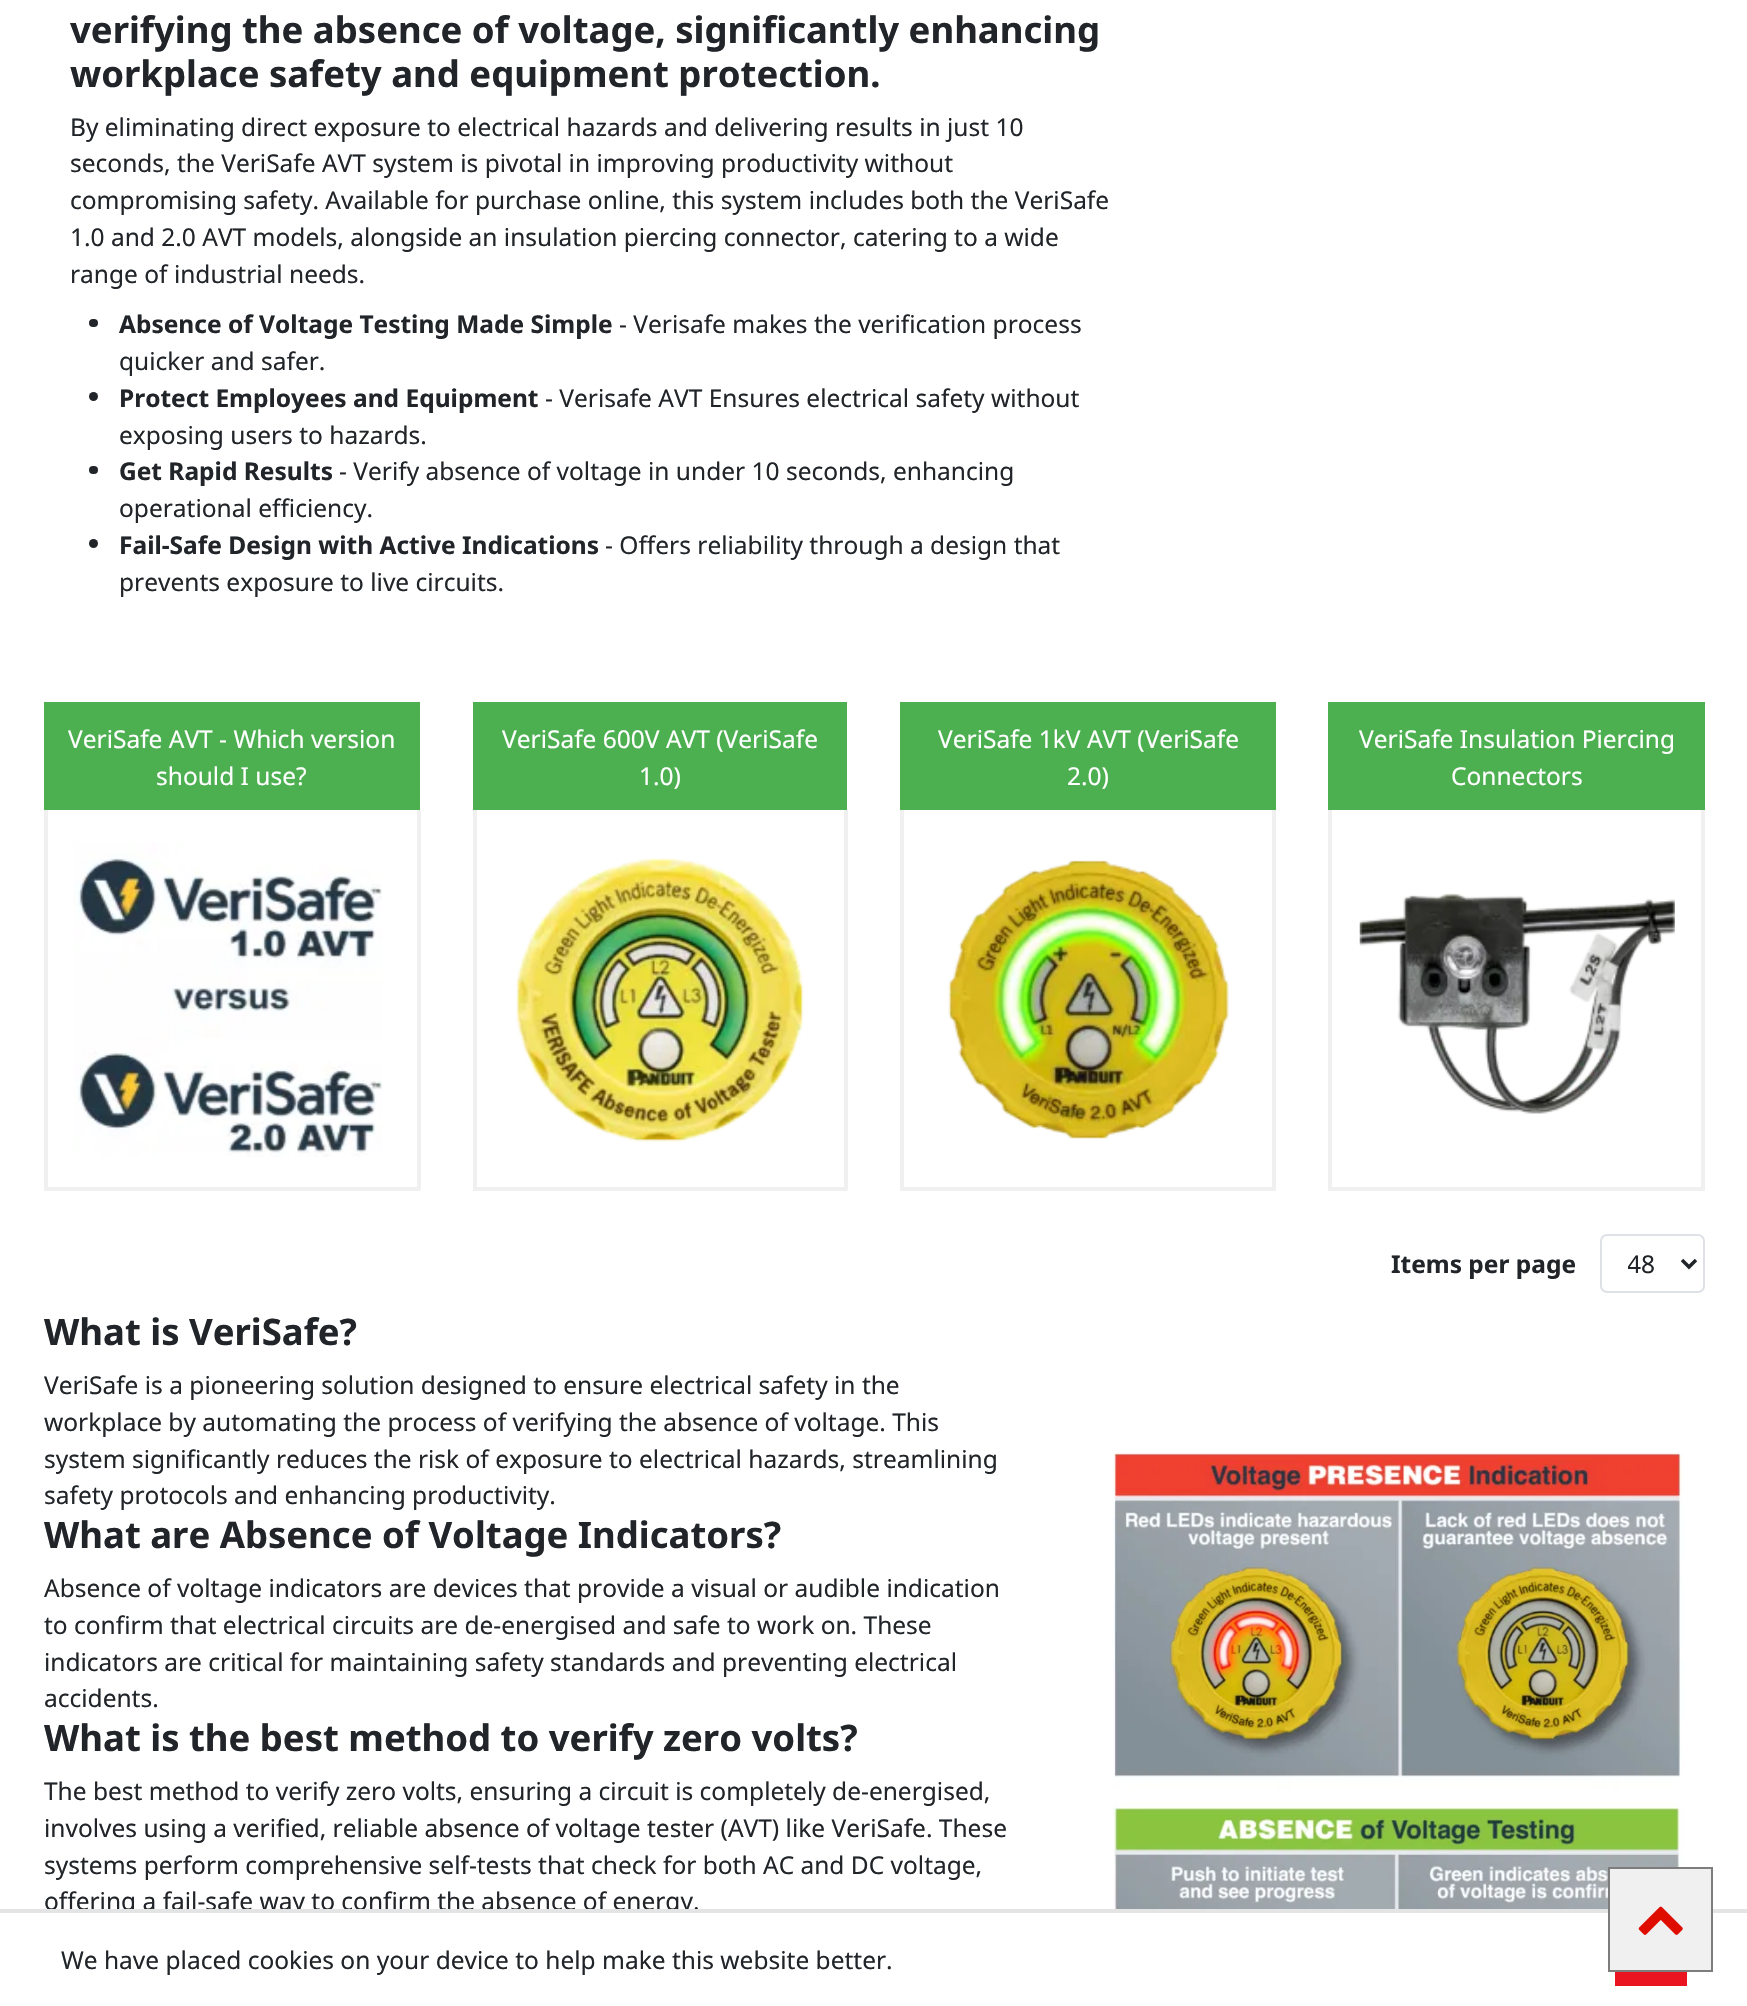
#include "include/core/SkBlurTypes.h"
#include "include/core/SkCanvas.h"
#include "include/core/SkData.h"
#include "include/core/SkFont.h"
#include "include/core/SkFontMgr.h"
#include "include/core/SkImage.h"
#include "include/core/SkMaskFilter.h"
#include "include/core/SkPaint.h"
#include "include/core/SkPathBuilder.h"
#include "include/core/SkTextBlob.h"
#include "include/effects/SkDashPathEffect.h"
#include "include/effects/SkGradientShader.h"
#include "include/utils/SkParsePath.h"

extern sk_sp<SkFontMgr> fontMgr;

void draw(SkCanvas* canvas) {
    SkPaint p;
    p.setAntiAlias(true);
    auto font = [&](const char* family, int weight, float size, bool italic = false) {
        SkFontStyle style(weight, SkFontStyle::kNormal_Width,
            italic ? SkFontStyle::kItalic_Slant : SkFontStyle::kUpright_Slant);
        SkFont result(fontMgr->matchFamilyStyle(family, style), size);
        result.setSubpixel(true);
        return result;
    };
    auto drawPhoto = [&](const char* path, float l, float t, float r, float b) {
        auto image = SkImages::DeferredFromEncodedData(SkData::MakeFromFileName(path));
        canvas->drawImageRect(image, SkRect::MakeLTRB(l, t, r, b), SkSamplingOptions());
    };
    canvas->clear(0xFFFFFFFF);
    auto font1 = font("Noto Sans", 700, 36.5f);
    p.setColor(0xFF212529);
    canvas->drawString("verifying the absence of voltage, significantly enhancing", 70, 43, font1, p);
    canvas->drawString("workplace safety and equipment protection.", 70, 87, font1, p);
    auto font2 = font("Noto Sans", 400, 24.5f);
    {
        const struct { const char* s; float x, y; } items[] = {
            {"By eliminating direct exposure to electrical hazards and delivering results in just 10", 70, 136},
            {"seconds, the VeriSafe AVT system is pivotal in improving productivity without", 70, 172},
            {"compromising safety. Available for purchase online, this system includes both the VeriSafe", 70, 209},
            {"1.0 and 2.0 AVT models, alongside an insulation piercing connector, catering to a wide", 70, 246},
            {"range of industrial needs.", 70, 283},
        };
        for (auto [s, x, y] : items) {
            canvas->drawString(s, x, y, font2, p);
        }
    }
    canvas->drawRoundRect(SkRect::MakeLTRB(89, 319, 98, 327), 4, 4, p);
    auto font3 = font("Noto Sans", 700, 24.5f);
    canvas->drawString("Absence of Voltage Testing Made Simple", 119, 333, font3, p);
    canvas->drawString("- Verisafe makes the verification process", 619, 333, font2, p);
    canvas->drawString("quicker and safer.", 119, 370, font2, p);
    canvas->drawCircle(93.5f, 396.5f, 4.5f, p);
    canvas->drawString("Protect Employees and Equipment", 119, 407, font3, p);
    canvas->drawString("- Verisafe AVT Ensures electrical safety without", 545, 407, font2, p);
    canvas->drawString("exposing users to hazards.", 119, 444, font2, p);
    canvas->drawRoundRect(SkRect::MakeLTRB(89, 466, 98, 474), 4, 4, p);
    canvas->drawString("Get Rapid Results", 119, 480, font3, p);
    canvas->drawString("- Verify absence of voltage in under 10 seconds, enhancing", 339, 480, font2, p);
    canvas->drawString("operational efficiency.", 119, 517, font2, p);
    canvas->drawCircle(93.5f, 543.5f, 4.5f, p);
    canvas->drawString("Fail-Safe Design with Active Indications", 119, 554, font3, p);
    canvas->drawString("- Offers reliability through a design that", 605, 554, font2, p);
    canvas->drawString("prevents exposure to live circuits.", 119, 591, font2, p);
    p.setColor(0xFF4CAF50);
    canvas->drawRect(SkRect::MakeLTRB(44, 702, 420, 810), p);
    p.setColor(0xFFFFFFFF);
    canvas->drawString("VeriSafe AVT - Which version", 68, 748, font2, p);
    canvas->drawString("should I use?", 156, 785, font2, p);
    {
        const struct { float l, t, r, b; SkColor color; } items[] = {
            {417, 810, 421, 1190, 0xFFF0F0F0},
            {44, 1187, 420, 1191, 0xFFF0F0F0},
            {44, 810, 48, 1190, 0xFFF0F0F0},
        };
        for (auto [l, t, r, b, color] : items) {
            p.setColor(color);
            canvas->drawRect(SkRect::MakeLTRB(l, t, r, b), p);
        }
    }
    drawPhoto("media/1.png", 74, 842, 382, 1157);
    p.setColor(0xFF4CAF50);
    canvas->drawRect(SkRect::MakeLTRB(473, 702, 847, 810), p);
    p.setColor(0xFFFFFFFF);
    canvas->drawString("VeriSafe 600V AVT (VeriSafe", 502, 748, font2, p);
    canvas->drawString("1.0)", 639, 785, font2, p);
    {
        const struct { float l, t, r, b; SkColor color; } items[] = {
            {844, 810, 848, 1190, 0xFFF0F0F0},
            {473, 1187, 847, 1191, 0xFFF0F0F0},
            {473, 810, 477, 1190, 0xFFF0F0F0},
        };
        for (auto [l, t, r, b, color] : items) {
            p.setColor(color);
            canvas->drawRect(SkRect::MakeLTRB(l, t, r, b), p);
        }
    }
    drawPhoto("media/2.png", 516, 858, 804, 1142);
    p.setColor(0xFF4CAF50);
    canvas->drawRect(SkRect::MakeLTRB(900, 702, 1276, 810), p);
    p.setColor(0xFFFFFFFF);
    canvas->drawString("VeriSafe 1kV AVT (VeriSafe", 938, 748, font2, p);
    canvas->drawString("2.0)", 1067, 785, font2, p);
    {
        const struct { float l, t, r, b; SkColor color; } items[] = {
            {1272, 810, 1276, 1190, 0xFFF0F0F0},
            {900, 1187, 1276, 1191, 0xFFF0F0F0},
            {900, 810, 904, 1190, 0xFFF0F0F0},
        };
        for (auto [l, t, r, b, color] : items) {
            p.setColor(color);
            canvas->drawRect(SkRect::MakeLTRB(l, t, r, b), p);
        }
    }
    drawPhoto("media/3.png", 948, 860, 1229, 1139);
    p.setColor(0xFF4CAF50);
    canvas->drawRect(SkRect::MakeLTRB(1328, 702, 1705, 810), p);
    p.setColor(0xFFFFFFFF);
    canvas->drawString("VeriSafe Insulation Piercing", 1359, 748, font2, p);
    canvas->drawString("Connectors", 1451, 785, font2, p);
    {
        const struct { float l, t, r, b; SkColor color; } items[] = {
            {1701, 810, 1705, 1190, 0xFFF0F0F0},
            {1328, 1187, 1705, 1191, 0xFFF0F0F0},
            {1328, 810, 1332, 1190, 0xFFF0F0F0},
        };
        for (auto [l, t, r, b, color] : items) {
            p.setColor(color);
            canvas->drawRect(SkRect::MakeLTRB(l, t, r, b), p);
        }
    }
    drawPhoto("media/4.png", 1359, 893, 1675, 1114);
    p.setColor(0xFF212529);
    canvas->drawString("Items per page", 1391, 1273, font3, p);
    p.setStyle(SkPaint::kStroke_Style);
    p.setStrokeWidth(2);
    p.setColor(0xFFDEE2E6);
    canvas->drawRoundRect(SkRect::MakeLTRB(1601, 1235, 1704, 1292), 6, 6, p);
    p.setStrokeWidth(3.5f);
    p.setColor(0xFF212529);
    canvas->drawPath(SkPathBuilder().moveTo(1682, 1260).lineTo(1689, 1267).lineTo(1696, 1260).detach(), p);
    canvas->save();
    canvas->clipRect(SkRect::MakeLTRB(1628, 1244, 1657, 1281));
    p.setStyle(SkPaint::kFill_Style);
    canvas->drawString("48", 1627, 1273, font2, p);
    canvas->restore();
    canvas->drawString("What is VeriSafe?", 44, 1345, font1, p);
    {
        const struct { const char* s; float x, y; } items[] = {
            {"VeriSafe is a pioneering solution designed to ensure electrical safety in the", 44, 1394},
            {"workplace by automating the process of verifying the absence of voltage. This", 44, 1431},
            {"system significantly reduces the risk of exposure to electrical hazards, streamlining", 44, 1468},
            {"safety protocols and enhancing productivity.", 44, 1504},
        };
        for (auto [s, x, y] : items) {
            canvas->drawString(s, x, y, font2, p);
        }
    }
    canvas->drawString("What are Absence of Voltage Indicators?", 44, 1548, font1, p);
    {
        const struct { const char* s; float x, y; } items[] = {
            {"Absence of voltage indicators are devices that provide a visual or audible indication", 44, 1597},
            {"to confirm that electrical circuits are de-energised and safe to work on. These", 44, 1634},
            {"indicators are critical for maintaining safety standards and preventing electrical", 44, 1671},
            {"accidents.", 44, 1707},
        };
        for (auto [s, x, y] : items) {
            canvas->drawString(s, x, y, font2, p);
        }
    }
    canvas->drawString("What is the best method to verify zero volts?", 44, 1751, font1, p);
    {
        const struct { const char* s; float x, y; } items[] = {
            {"The best method to verify zero volts, ensuring a circuit is completely de-energised,", 44, 1800},
            {"involves using a verified, reliable absence of voltage tester (AVT) like VeriSafe. These", 44, 1837},
            {"systems perform comprehensive self-tests that check for both AC and DC voltage,", 44, 1874},
            {"offering a fail-safe way to confirm the absence of energy.", 44, 1910},
        };
        for (auto [s, x, y] : items) {
            canvas->drawString(s, x, y, font2, p);
        }
    }
    drawPhoto("media/5.png", 1113, 1452, 1684, 1909);
    p.setColor(0xFFFFFFFF);
    canvas->drawRect(SkRect::MakeLTRB(123, 1913, 687, 1916), p);
    p.setColor(0xFFE4E4E4);
    canvas->drawRect(SkRect::MakeLTRB(0, 1909, 1747, 1913), p);
    p.setColor(0xFF212529);
    canvas->drawString("We have placed cookies on your device to help make this website better.", 61, 1969, font2, p);
    p.setColor(0xFFE9141F);
    canvas->drawRect(SkRect::MakeLTRB(1615, 1972, 1687, 1986), p);
    p.setColor(0xFFF0F0F0);
    canvas->drawRect(SkRect::MakeLTRB(1609, 1868, 1712, 1971), p);
    p.setStyle(SkPaint::kStroke_Style);
    p.setStrokeWidth(2);
    p.setColor(0xFF7D7D7D);
    canvas->drawRect(SkRect::MakeLTRB(1609, 1868, 1712, 1971), p);
    drawPhoto("media/6.png", 1638, 1906, 1683, 1935);
}
